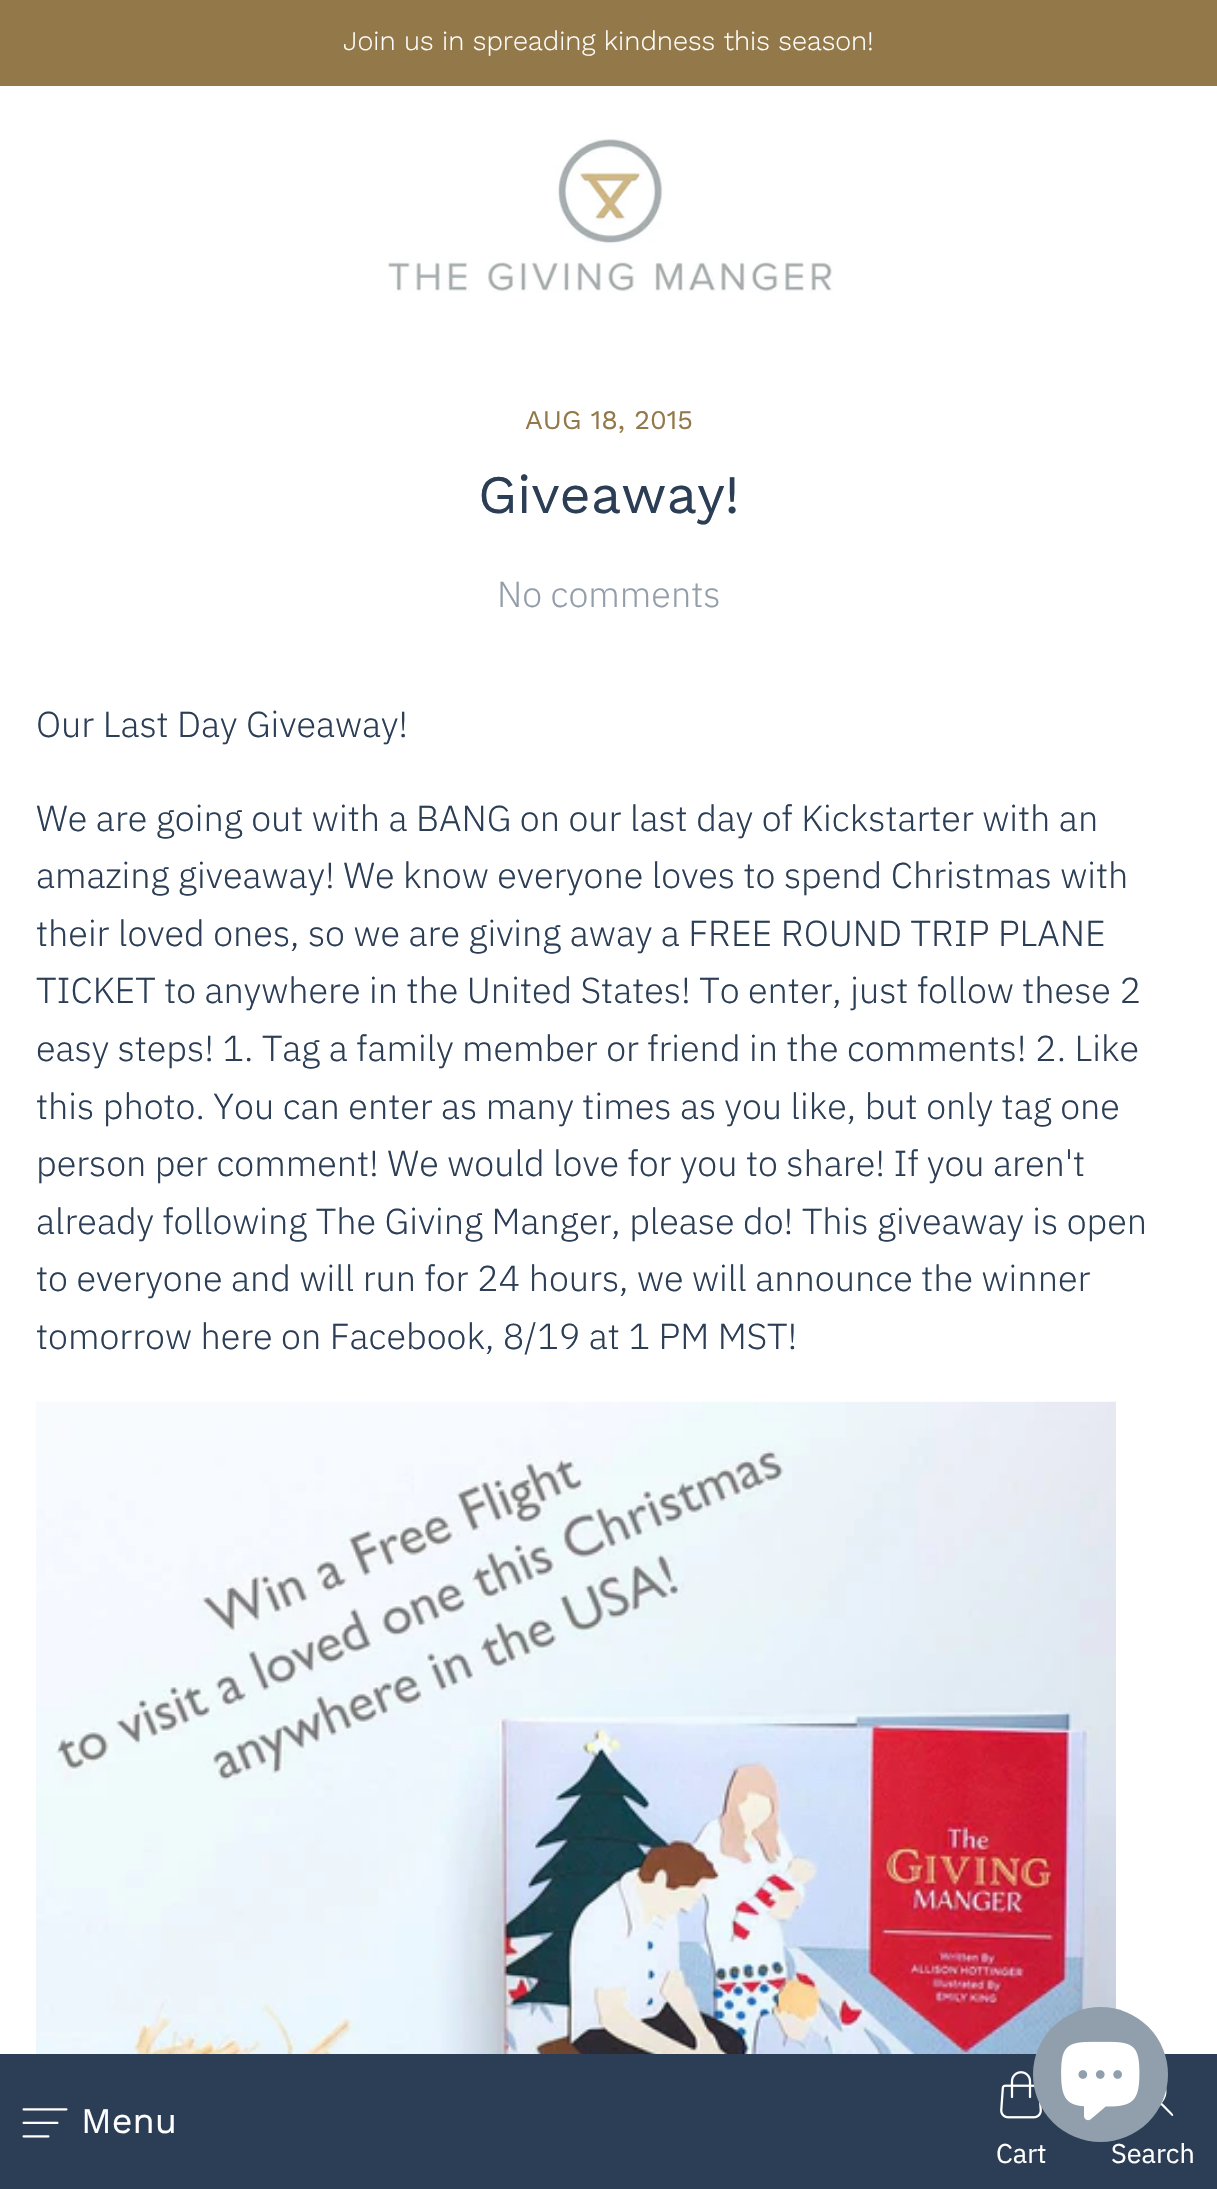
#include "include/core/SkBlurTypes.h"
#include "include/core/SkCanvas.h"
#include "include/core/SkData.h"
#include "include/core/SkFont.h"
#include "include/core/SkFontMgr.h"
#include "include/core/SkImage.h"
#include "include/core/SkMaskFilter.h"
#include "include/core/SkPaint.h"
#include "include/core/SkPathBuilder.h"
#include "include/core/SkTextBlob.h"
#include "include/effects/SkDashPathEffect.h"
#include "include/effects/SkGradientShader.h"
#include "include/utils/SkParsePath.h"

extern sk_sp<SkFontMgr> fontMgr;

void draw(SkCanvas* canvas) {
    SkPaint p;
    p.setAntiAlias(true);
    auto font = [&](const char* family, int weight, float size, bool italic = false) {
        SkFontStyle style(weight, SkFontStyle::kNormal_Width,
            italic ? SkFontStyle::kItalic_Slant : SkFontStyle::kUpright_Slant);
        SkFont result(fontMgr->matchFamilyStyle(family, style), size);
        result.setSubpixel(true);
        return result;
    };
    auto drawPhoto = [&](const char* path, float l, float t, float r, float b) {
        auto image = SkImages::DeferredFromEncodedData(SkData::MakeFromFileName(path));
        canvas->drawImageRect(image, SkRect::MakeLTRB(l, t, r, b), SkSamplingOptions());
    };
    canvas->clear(0xFFFFFFFF);
    p.setColor(0xFF937949);
    canvas->drawRect(SkRect::MakeLTRB(0, 0, 1217, 86), p);
    auto font1 = font("Work Sans", 300, 27);
    p.setColor(0xFFFFFFFF);
    canvas->drawString("Join us in spreading kindness this season!", 343, 50, font1, p);
    auto font2 = font("Work Sans", 400, 27);
    p.setColor(0xFF937949);
    canvas->drawString("AUG 18, 2015", 525, 429, font2, p);
    auto font3 = font("Work Sans", 400, 54);
    p.setColor(0xFF2B3E55);
    canvas->drawString("Giveaway!", 478, 513, font3, p);
    auto font4 = font("IBM Plex Sans", 300, 36);
    p.setColor(0xFF949EA9);
    canvas->drawString("No comments", 497, 607, font4, p);
    p.setColor(0xFF2B3E55);
    {
        const struct { const char* s; float x, y; } items[] = {
            {"Our Last Day Giveaway!", 36, 737},
            {"We are going out with a BANG on our last day of Kickstarter with an", 36, 831},
            {"amazing giveaway! We know everyone loves to spend Christmas with", 36, 888},
            {"their loved ones, so we are giving away a FREE ROUND TRIP PLANE", 36, 946},
            {"TICKET to anywhere in the United States! To enter, just follow these 2", 36, 1003},
            {"easy steps! 1. Tag a family member or friend in the comments! 2. Like", 36, 1061},
            {"this photo. You can enter as many times as you like, but only tag one", 36, 1119},
            {"person per comment! We would love for you to share! If you aren't", 36, 1176},
            {"already following The Giving Manger, please do! This giveaway is open", 36, 1234},
            {"to everyone and will run for 24 hours, we will announce the winner", 36, 1291},
            {"tomorrow here on Facebook, 8/19 at 1 PM MST!", 36, 1349},
        };
        for (auto [s, x, y] : items) {
            canvas->drawString(s, x, y, font4, p);
        }
    }
    drawPhoto("media/1.png", 36, 1401, 1116, 2054);
    canvas->drawRect(SkRect::MakeLTRB(0, 2054, 1217, 2189), p);
    drawPhoto("media/5.png", 1000, 2071, 1042, 2119);
    p.setColor(0xFFFFFFFF);
    canvas->drawPath(SkPathBuilder(SkPathFillType::kEvenOdd).moveTo(1161, 2105).cubicTo(1143, 2120, 1120, 2095, 1136, 2079).cubicTo(1152, 2062, 1177, 2086, 1162, 2103).cubicTo(1170, 2111, 1176, 2116, 1172, 2116).close().moveTo(1149, 2107).cubicTo(1169, 2107, 1169, 2076, 1149, 2076).cubicTo(1128, 2076, 1128, 2107, 1149, 2107).close().detach(), p);
    p.setColor(0xFF909FAB);
    canvas->drawCircle(1100.5f, 2074.5f, 67.5f, p);
    drawPhoto("media/2.png", 1061, 2041, 1140, 2121);
    drawPhoto("media/3.png", 388, 139, 834, 293);
    drawPhoto("media/4.png", 22, 2108, 68, 2138);
    auto font5 = font("Work Sans", 400, 36);
    p.setColor(0xFFFFFFFF);
    canvas->drawString("Menu", 81, 2133, font5, p);
    auto font6 = font("IBM Plex Sans", 400, 27);
    canvas->drawString("Cart", 996, 2163, font6, p);
    canvas->drawString("Search", 1111, 2163, font6, p);
}
